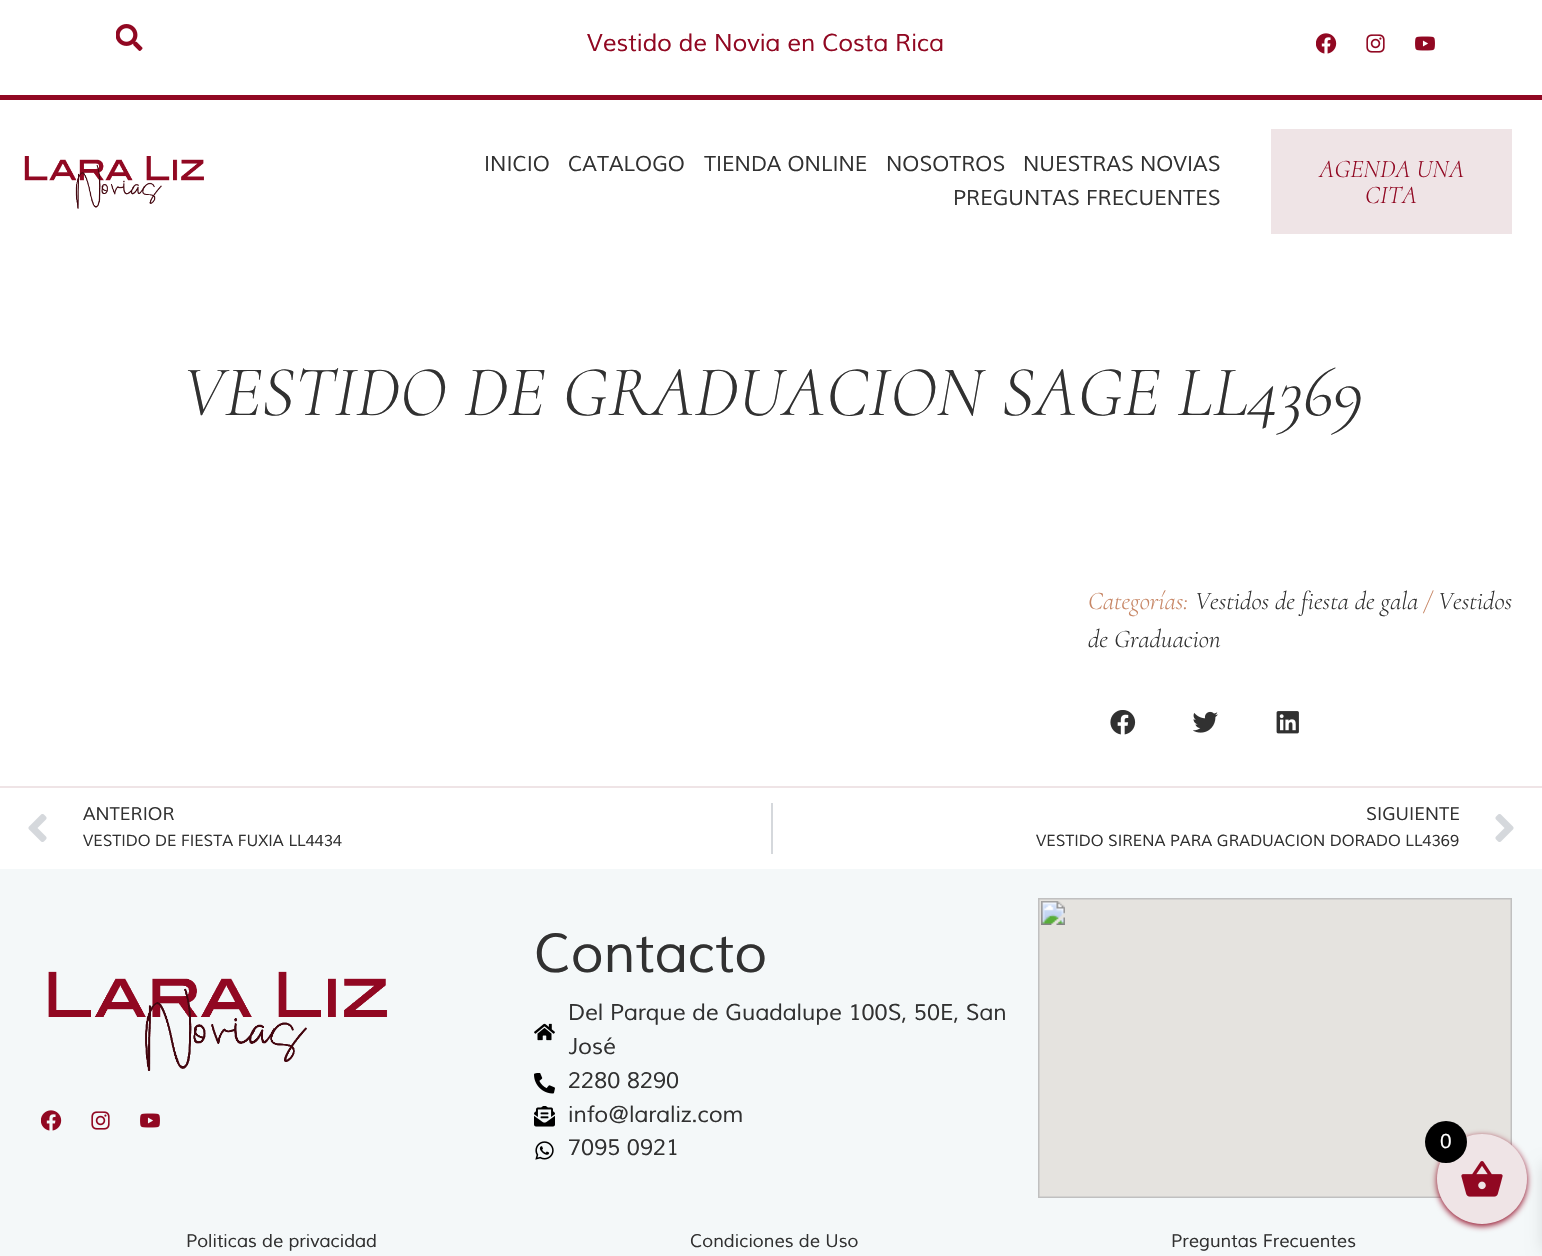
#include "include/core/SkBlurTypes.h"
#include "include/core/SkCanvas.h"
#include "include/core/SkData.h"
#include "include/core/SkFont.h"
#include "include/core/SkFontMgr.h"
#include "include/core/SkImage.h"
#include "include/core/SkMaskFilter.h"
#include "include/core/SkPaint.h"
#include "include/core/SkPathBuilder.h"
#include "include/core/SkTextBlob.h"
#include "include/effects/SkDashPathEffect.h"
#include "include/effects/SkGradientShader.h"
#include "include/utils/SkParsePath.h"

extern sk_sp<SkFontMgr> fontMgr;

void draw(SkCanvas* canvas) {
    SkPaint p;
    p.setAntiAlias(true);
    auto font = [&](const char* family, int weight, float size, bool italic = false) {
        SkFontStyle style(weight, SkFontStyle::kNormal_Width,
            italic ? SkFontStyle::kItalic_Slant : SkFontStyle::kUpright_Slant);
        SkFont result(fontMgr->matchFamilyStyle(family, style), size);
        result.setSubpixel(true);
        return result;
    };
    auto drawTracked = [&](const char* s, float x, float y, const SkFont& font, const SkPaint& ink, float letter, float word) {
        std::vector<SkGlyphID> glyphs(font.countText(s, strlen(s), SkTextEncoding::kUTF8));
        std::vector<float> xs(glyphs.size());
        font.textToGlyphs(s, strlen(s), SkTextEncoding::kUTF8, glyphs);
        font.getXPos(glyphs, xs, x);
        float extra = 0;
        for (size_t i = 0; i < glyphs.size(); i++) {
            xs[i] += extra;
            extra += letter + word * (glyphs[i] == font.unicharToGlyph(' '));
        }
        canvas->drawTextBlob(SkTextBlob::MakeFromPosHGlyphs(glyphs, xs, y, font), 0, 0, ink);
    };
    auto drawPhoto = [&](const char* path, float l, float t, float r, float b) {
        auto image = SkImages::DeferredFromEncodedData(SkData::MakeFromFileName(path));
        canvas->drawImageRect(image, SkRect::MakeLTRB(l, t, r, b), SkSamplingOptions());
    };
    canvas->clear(0xFFFFFFFF);
    drawPhoto("media/1.png", 116, 24, 143, 51);
    auto font1 = font("Muli", 400, 24, true);
    p.setColor(0xFF910822);
    canvas->drawString("Vestido de Novia en Costa Rica", 587, 51, font1, p);
    drawPhoto("media/2.png", 1316, 33, 1337, 54);
    drawPhoto("media/3.png", 1366, 34, 1385, 53);
    drawPhoto("media/4.png", 1415, 36, 1435, 51);
    canvas->drawRect(SkRect::MakeLTRB(0, 95, 1542, 100), p);
    drawPhoto("media/5.png", 24, 156, 204, 209);
    auto font2 = font("Muli", 400, 21, true);
    p.setColor(0xFF313131);
    {
        const struct { const char* s; float x, y; } items[] = {
            {"INICIO", 484, 171},
            {"CATALOGO", 568, 171},
            {"TIENDA ONLINE", 704, 171},
            {"NOSOTROS", 886, 171},
            {"NUESTRAS NOVIAS", 1023, 171},
            {"PREGUNTAS FRECUENTES", 953, 205},
        };
        for (auto [s, x, y] : items) {
            canvas->drawString(s, x, y, font2, p);
        }
    }
    p.setColor(0xFFEFE4E6);
    canvas->drawRect(SkRect::MakeLTRB(1271, 129, 1512, 234), p);
    auto font3 = font("Cormorant", 300, 25.5f, true);
    p.setColor(0xFF910822);
    canvas->drawString("AGENDA UNA", 1319, 177, font3, p);
    canvas->drawString("CITA", 1365, 203, font3, p);
    auto font4 = font("Cormorant", 300, 72, true);
    p.setColor(0xFF313131);
    drawTracked("VESTIDO DE GRADUACION SAGE LL4369", 182, 415, font4, p, 0, 1);
    p.setColor(0xFFC78665);
    canvas->drawString("Categorías:", 1088, 609, font3, p);
    p.setColor(0xFF313131);
    canvas->drawString("Vestidos de fiesta de gala", 1195, 609, font3, p);
    p.setColor(0xFFC78665);
    canvas->drawString("/", 1424, 609, font3, p);
    p.setColor(0xFF313131);
    canvas->drawString("Vestidos", 1438, 609, font3, p);
    canvas->drawString("de Graduacion", 1088, 647, font3, p);
    drawPhoto("media/6.png", 1110, 710, 1136, 735);
    drawPhoto("media/7.png", 1193, 711, 1218, 733);
    drawPhoto("media/8.png", 1276, 711, 1299, 734);
    p.setColor(0xFFEFE4E6);
    canvas->drawRect(SkRect::MakeLTRB(0, 786, 1542, 788), p);
    drawPhoto("media/9.png", 28, 814, 47, 842);
    auto font5 = font("Muli", 400, 18, true);
    p.setColor(0xFF313131);
    canvas->drawString("ANTERIOR", 83, 820, font5, p);
    auto font6 = font("Muli", 400, 15.75f, true);
    canvas->drawString("VESTIDO DE FIESTA FUXIA LL4434", 83, 846, font6, p);
    p.setColor(0xFFD5D8DC);
    canvas->drawRect(SkRect::MakeLTRB(771, 803, 773, 854), p);
    p.setColor(0xFF313131);
    canvas->drawString("SIGUIENTE", 1366, 820, font5, p);
    canvas->drawString("VESTIDO SIRENA PARA GRADUACION DORADO LL4369", 1036, 846, font6, p);
    drawPhoto("media/10.png", 1495, 814, 1514, 842);
    p.setColor(0xFFF4F8F9);
    canvas->drawRect(SkRect::MakeLTRB(0, 869, 1542, 1256), p);
    drawPhoto("media/11.png", 48, 971, 388, 1071);
    drawPhoto("media/12.png", 41, 1110, 62, 1131);
    drawPhoto("media/13.png", 91, 1111, 110, 1130);
    drawPhoto("media/14.png", 140, 1113, 160, 1128);
    auto font7 = font("Muli", 400, 54, true);
    p.setColor(0xFF313131);
    canvas->drawString("Contacto", 534, 972, font7, p);
    drawPhoto("media/15.png", 534, 1023, 555, 1041);
    auto font8 = font("Muli", 400, 22.5f, true);
    canvas->drawString("Del Parque de Guadalupe 100S, 50E, San", 568, 1020, font8, p);
    canvas->drawString("José", 568, 1054, font8, p);
    drawPhoto("media/16.png", 534, 1073, 555, 1094);
    canvas->drawString("2280 8290", 568, 1088, font8, p);
    drawPhoto("media/17.png", 534, 1106, 555, 1127);
    canvas->drawString("info@laraliz.com", 568, 1122, font8, p);
    drawPhoto("media/18.png", 535, 1141, 554, 1160);
    canvas->drawString("7095 0921", 568, 1155, font8, p);
    drawPhoto("media/19.png", 1038, 898, 1512, 1198);
    {
        const struct { const char* s; float x, y; } items[] = {
            {"Politicas de privacidad", 186, 1247},
            {"Condiciones de Uso", 690, 1247},
            {"Preguntas Frecuentes", 1171, 1247},
        };
        for (auto [s, x, y] : items) {
            canvas->drawString(s, x, y, font5, p);
        }
    }
    p.setColor(0xFF910822);
    p.setMaskFilter(SkMaskFilter::MakeBlur(kNormal_SkBlurStyle, 3));
    canvas->drawRoundRect(SkRect::MakeLTRB(1437, 1136, 1527, 1226), 45, 45, p);
    p.setMaskFilter(nullptr);
    p.setColor(0x1A000000);
    p.setMaskFilter(SkMaskFilter::MakeBlur(kNormal_SkBlurStyle, 7.5f));
    canvas->drawRect(SkRect::MakeLTRB(1542, 1164, 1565, 1250), p);
    p.setMaskFilter(nullptr);
    p.setColor(0xFFEFE4E6);
    canvas->drawCircle(1482, 1179, 45, p);
    drawPhoto("media/20.png", 1461, 1161, 1503, 1197);
    p.setColor(0xFF000000);
    canvas->drawCircle(1446, 1142, 21, p);
    auto font9 = font("Muli", 400, 20, true);
    p.setColor(0xFFFFFFFF);
    canvas->drawString("0", 1440, 1148, font9, p);
}
